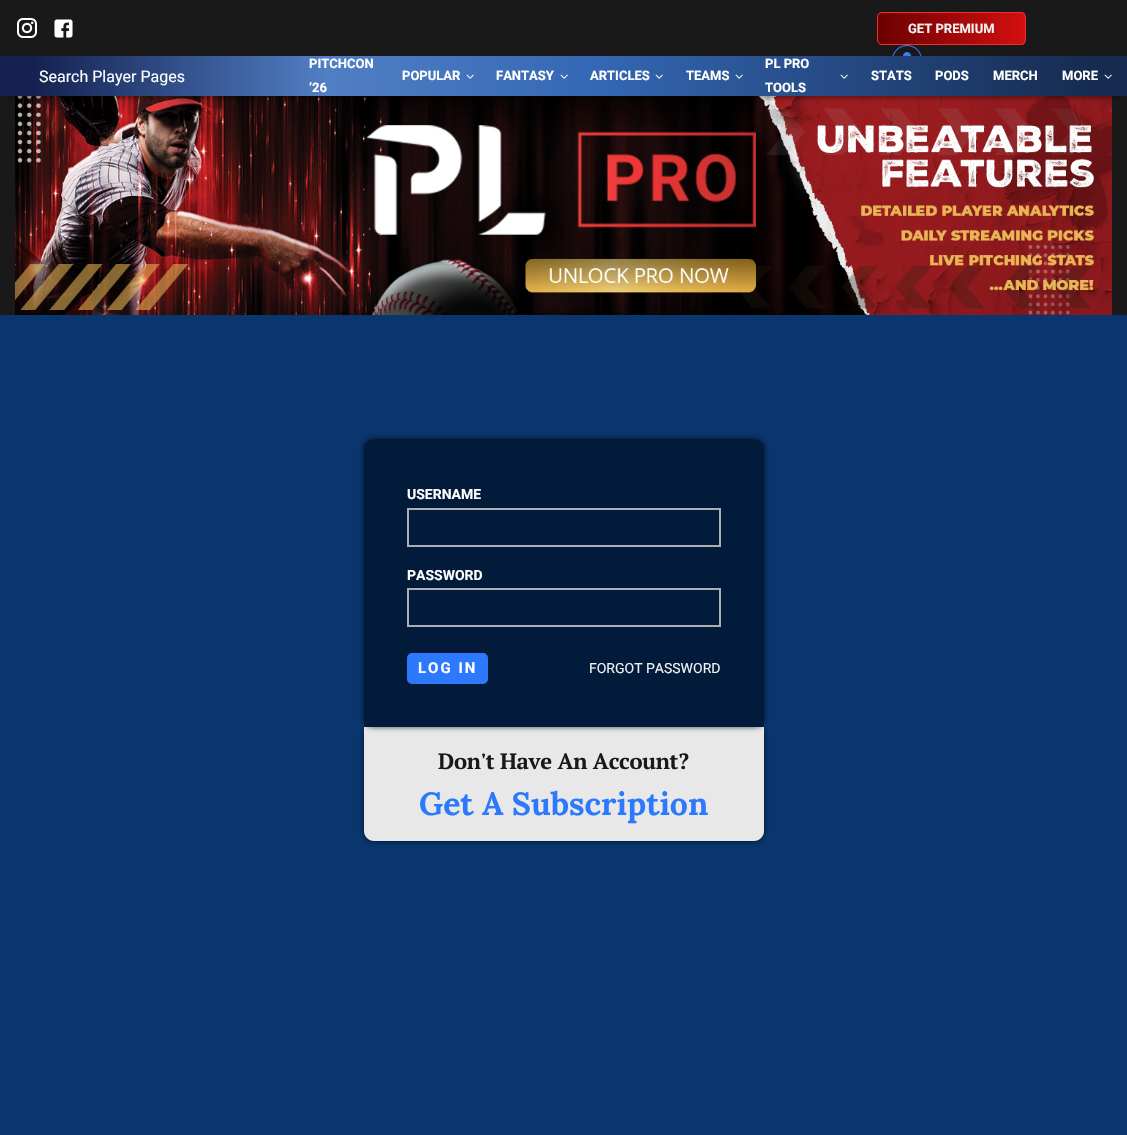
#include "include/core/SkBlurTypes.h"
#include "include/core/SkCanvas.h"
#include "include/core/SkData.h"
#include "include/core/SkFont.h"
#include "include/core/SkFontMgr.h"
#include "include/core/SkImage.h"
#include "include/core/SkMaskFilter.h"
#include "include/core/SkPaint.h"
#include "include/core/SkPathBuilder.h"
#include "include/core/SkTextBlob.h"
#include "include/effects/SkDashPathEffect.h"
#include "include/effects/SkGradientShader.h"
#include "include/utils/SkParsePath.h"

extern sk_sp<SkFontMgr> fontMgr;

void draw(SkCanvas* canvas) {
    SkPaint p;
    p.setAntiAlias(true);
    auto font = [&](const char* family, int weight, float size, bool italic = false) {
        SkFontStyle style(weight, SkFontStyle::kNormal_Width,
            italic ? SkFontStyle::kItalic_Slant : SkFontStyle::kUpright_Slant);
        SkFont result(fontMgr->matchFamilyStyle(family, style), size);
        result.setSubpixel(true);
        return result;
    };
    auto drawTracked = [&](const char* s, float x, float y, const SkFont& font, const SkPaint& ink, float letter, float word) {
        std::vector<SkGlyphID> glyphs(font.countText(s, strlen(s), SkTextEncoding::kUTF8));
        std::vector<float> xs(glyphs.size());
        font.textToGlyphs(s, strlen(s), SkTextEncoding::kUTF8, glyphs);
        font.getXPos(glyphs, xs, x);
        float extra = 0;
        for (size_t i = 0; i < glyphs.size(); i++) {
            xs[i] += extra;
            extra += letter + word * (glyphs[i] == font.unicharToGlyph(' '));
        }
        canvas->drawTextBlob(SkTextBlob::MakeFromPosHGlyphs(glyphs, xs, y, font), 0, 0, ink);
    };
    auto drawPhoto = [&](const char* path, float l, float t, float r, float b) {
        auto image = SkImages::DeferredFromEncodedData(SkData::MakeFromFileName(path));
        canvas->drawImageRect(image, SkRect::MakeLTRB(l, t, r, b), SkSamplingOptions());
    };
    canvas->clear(0xFF191919);
    drawPhoto("media/10.png", 15, 96, 1112, 315);
    canvas->save();
    canvas->clipRect(SkRect::MakeLTRB(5, 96, 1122, 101));
    p.setColor(0x33000000);
    p.setMaskFilter(SkMaskFilter::MakeBlur(kNormal_SkBlurStyle, 2.5f));
    canvas->drawRect(SkRect::MakeLTRB(8, 18, 1119, 98), p);
    p.setMaskFilter(nullptr);
    p.setMaskFilter(SkMaskFilter::MakeBlur(kNormal_SkBlurStyle, 2.5f));
    canvas->drawRect(SkRect::MakeLTRB(8, 18, 1119, 98), p);
    p.setMaskFilter(nullptr);
    canvas->restore();
    drawPhoto("media/1.png", 17, 18, 37, 38);
    drawPhoto("media/2.png", 54, 19, 73, 38);
    canvas->save();
    canvas->clipPath(SkPathBuilder().moveTo(882, 12).lineTo(1021, 12).cubicTo(1024, 12, 1026, 14, 1026, 17).lineTo(1026, 40).cubicTo(1026, 43, 1024, 45, 1021, 45).lineTo(882, 45).cubicTo(879, 45, 877, 43, 877, 40).lineTo(877, 17).cubicTo(877, 14, 879, 12, 882, 12).close().detach(), true);
    {
        const SkColor colors[] = {0xFF6B0101, 0xFFD30F10};
        const float stops[] = {0, 1};
        const SkPoint ends[] = {{878, 29}, {1025, 28}};
        p.setShader(SkGradientShader::MakeLinear(ends, colors, stops, 2, SkTileMode::kClamp));
        p.setAlpha(255);
    }
    canvas->drawRect(SkRect::MakeLTRB(878, 12, 1025, 45), p);
    canvas->restore();
    p.setStyle(SkPaint::kStroke_Style);
    p.setStrokeWidth(1);
    p.setShader(nullptr);
    p.setColor(0xFFF03030);
    canvas->drawRoundRect(SkRect::MakeLTRB(877.5f, 12.5f, 1025.5f, 44.5f), 4.5f, 4.5f, p);
    auto font1 = font("Roboto", 700, 13);
    p.setStyle(SkPaint::kFill_Style);
    p.setColor(0xFFF1F1F1);
    canvas->drawString("GET PREMIUM", 908, 33, font1, p);
    drawPhoto("media/3.png", 892, 45, 922, 56);
    {
        const SkColor colors[] = {0xFF152251, 0xFF517FC4, 0xFF3467B4, 0xFF162B50};
        const float stops[] = {0.03f, 0.29f, 0.53f, 0.97f};
        const SkPoint ends[] = {{0, 76}, {1127, 76}};
        p.setShader(SkGradientShader::MakeLinear(ends, colors, stops, 4, SkTileMode::kClamp));
        p.setAlpha(255);
    }
    canvas->drawRect(SkRect::MakeLTRB(0, 56, 1127, 96), p);
    auto font2 = font("Roboto", 400, 16);
    p.setShader(nullptr);
    p.setColor(0xFFFEFEFE);
    canvas->drawString("Search Player Pages", 39, 82, font2, p);
    {
        const struct { const char* s; float x, y; } items[] = {
            {"PITCHCON", 309, 68},
            {"’26", 309, 92},
            {"POPULAR", 402, 80},
        };
        for (auto [s, x, y] : items) {
            canvas->drawString(s, x, y, font1, p);
        }
    }
    drawPhoto("media/4.png", 466, 74, 474, 79);
    canvas->drawString("FANTASY", 496, 80, font1, p);
    drawPhoto("media/5.png", 560, 74, 568, 79);
    canvas->drawString("ARTICLES", 590, 80, font1, p);
    drawPhoto("media/6.png", 655, 74, 663, 79);
    canvas->drawString("TEAMS", 686, 80, font1, p);
    drawPhoto("media/7.png", 735, 74, 743, 79);
    canvas->drawString("PL PRO", 765, 68, font1, p);
    canvas->drawString("TOOLS", 765, 92, font1, p);
    drawPhoto("media/8.png", 840, 74, 848, 79);
    {
        const struct { const char* s; float x, y; } items[] = {
            {"STATS", 871, 80},
            {"PODS", 935, 80},
            {"MERCH", 993, 80},
            {"MORE", 1062, 80},
        };
        for (auto [s, x, y] : items) {
            canvas->drawString(s, x, y, font1, p);
        }
    }
    drawPhoto("media/9.png", 1104, 74, 1112, 79);
    p.setColor(0xFF09366D);
    canvas->drawRect(SkRect::MakeLTRB(0, 315, 1127, 1135), p);
    p.setColor(0x80000000);
    p.setMaskFilter(SkMaskFilter::MakeBlur(kNormal_SkBlurStyle, 2.5f));
    canvas->drawRoundRect(SkRect::MakeLTRB(363, 726, 765, 842), 11, 11, p);
    p.setMaskFilter(nullptr);
    p.setColor(0xFFE8E8E8);
    canvas->drawPath(SkPathBuilder().moveTo(364, 727).lineTo(764, 727).lineTo(764, 831).cubicTo(764, 836.5f, 759.5f, 841, 754, 841).lineTo(374, 841).cubicTo(368.5f, 841, 364, 836.5f, 364, 831).close().detach(), p);
    p.setColor(0x80000000);
    p.setMaskFilter(SkMaskFilter::MakeBlur(kNormal_SkBlurStyle, 2.5f));
    canvas->drawRoundRect(SkRect::MakeLTRB(363, 438, 765, 728), 11, 11, p);
    p.setMaskFilter(nullptr);
    p.setColor(0xFF021B3A);
    canvas->drawPath(SkPathBuilder().moveTo(374, 439).lineTo(754, 439).cubicTo(759.5f, 439, 764, 443.5f, 764, 449).lineTo(764, 727).lineTo(364, 727).lineTo(364, 449).cubicTo(364, 443.5f, 368.5f, 439, 374, 439).close().detach(), p);
    auto font3 = font("Roboto", 700, 14);
    p.setColor(0xFFFEFEFE);
    canvas->drawString("USERNAME", 407, 499, font3, p);
    p.setStyle(SkPaint::kStroke_Style);
    p.setStrokeWidth(2);
    p.setColor(0xFFAEAFB5);
    canvas->drawRect(SkRect::MakeLTRB(408, 509, 720, 546), p);
    p.setStyle(SkPaint::kFill_Style);
    p.setColor(0xFFFEFEFE);
    canvas->drawString("PASSWORD", 407, 580, font3, p);
    p.setStyle(SkPaint::kStroke_Style);
    p.setColor(0xFFAEAFB5);
    canvas->drawRect(SkRect::MakeLTRB(408, 589, 720, 626), p);
    p.setStyle(SkPaint::kFill_Style);
    p.setColor(0xFF2C79FD);
    canvas->drawRoundRect(SkRect::MakeLTRB(407, 653, 488, 684), 5, 5, p);
    auto font4 = font("Roboto", 700, 15);
    p.setColor(0xFFFEFEFE);
    drawTracked("LOG IN", 418, 673, font4, p, 2, 0);
    auto font5 = font("Roboto", 400, 14);
    p.setColor(0xFFF1F1F1);
    canvas->drawString("FORGOT PASSWORD", 589, 673, font5, p);
    auto font6 = font("PT Serif", 700, 22);
    p.setColor(0xFF191919);
    drawTracked("Don't Have An Account?", 438, 769, font6, p, -0.25f, 0);
    auto font7 = font("Lora", 700, 32);
    p.setColor(0xFF2C79FD);
    canvas->drawString("Get A Subscription", 419, 815, font7, p);
}
